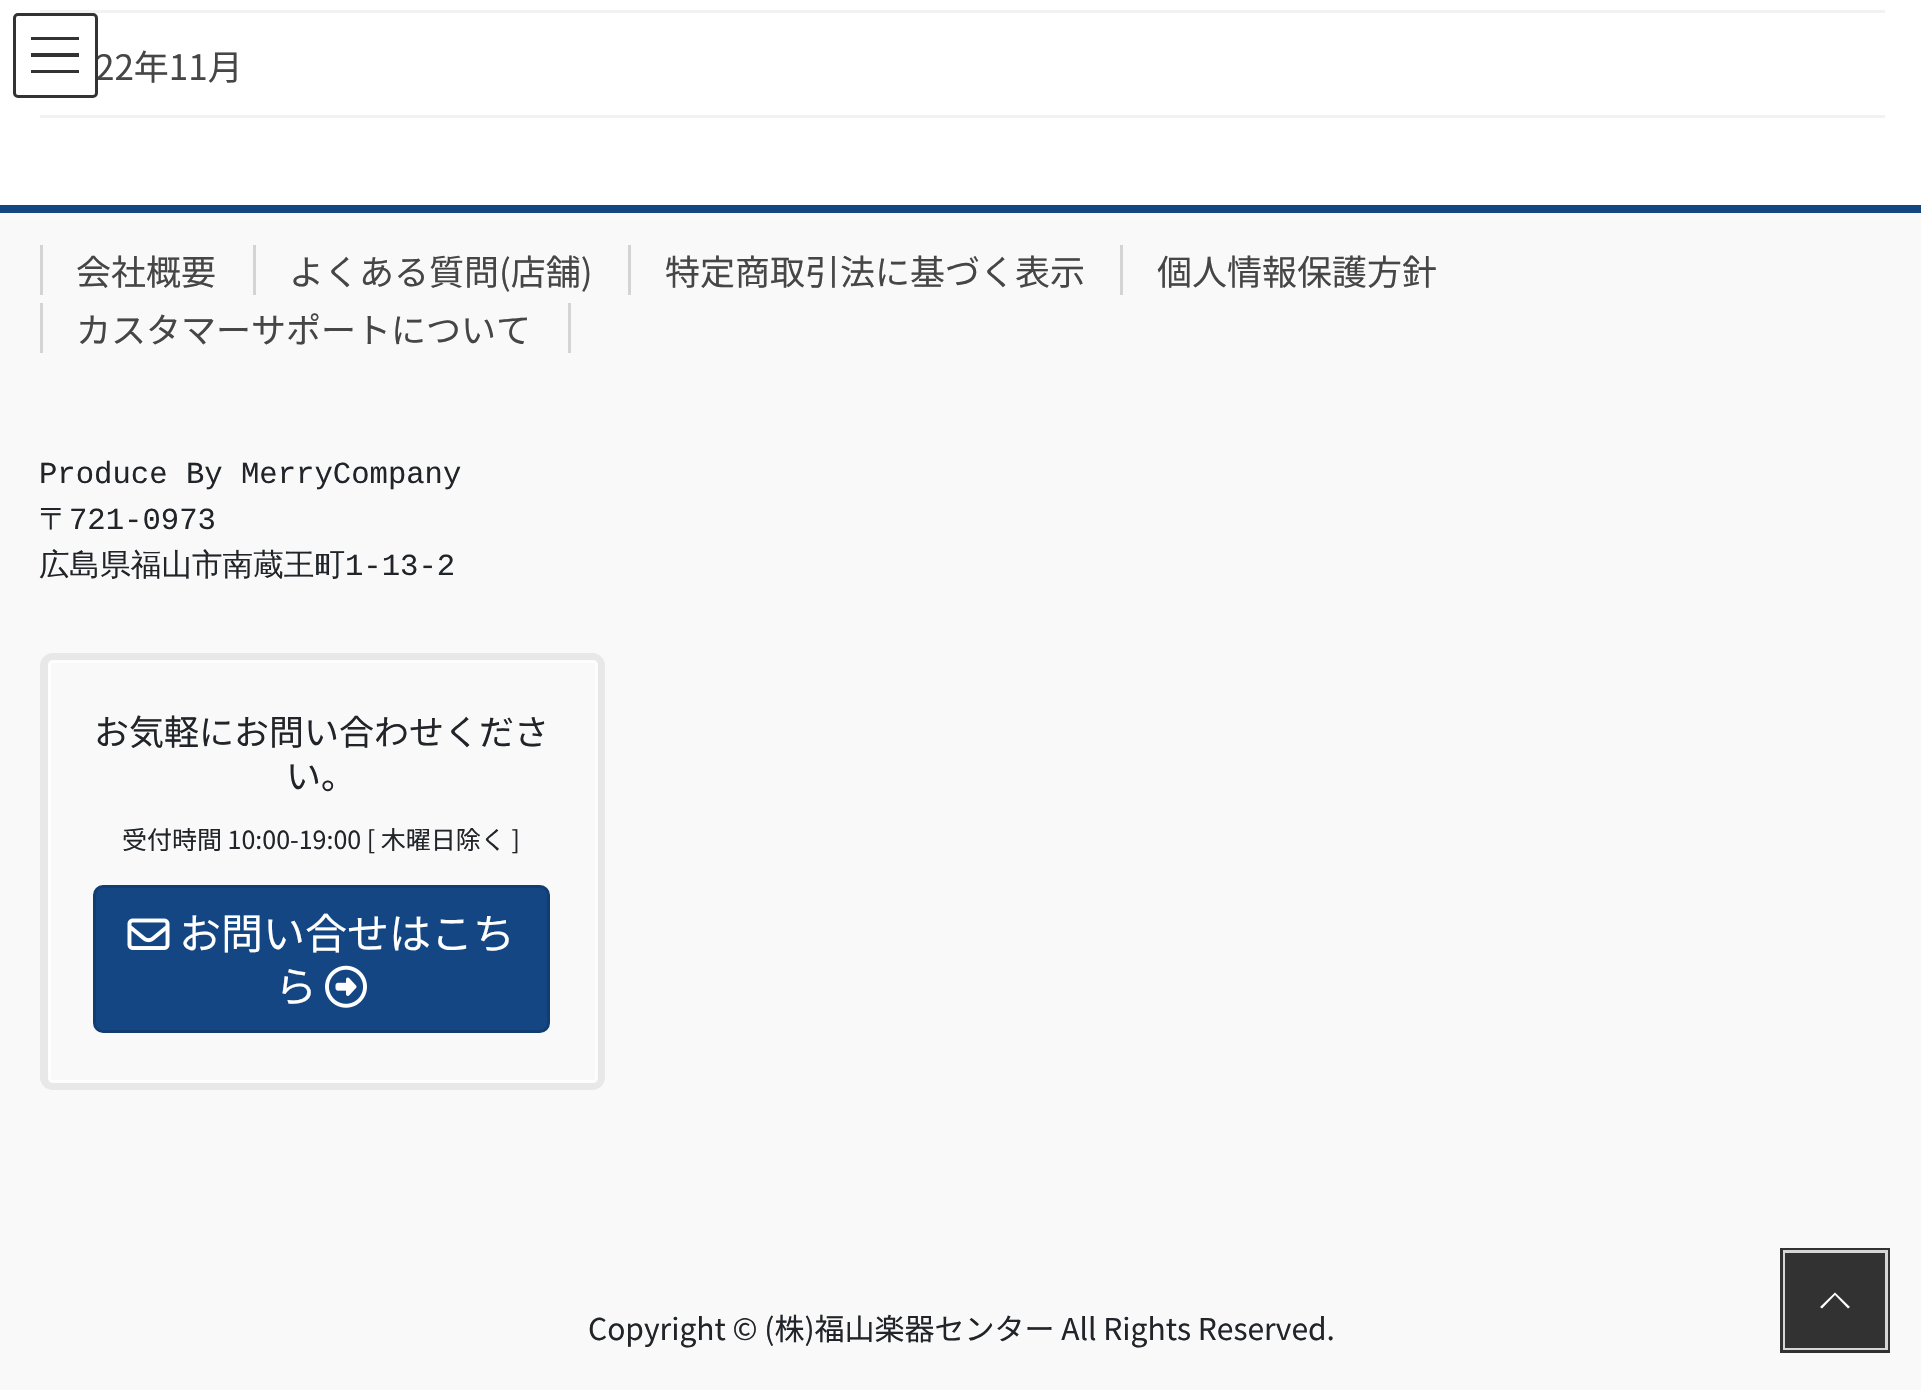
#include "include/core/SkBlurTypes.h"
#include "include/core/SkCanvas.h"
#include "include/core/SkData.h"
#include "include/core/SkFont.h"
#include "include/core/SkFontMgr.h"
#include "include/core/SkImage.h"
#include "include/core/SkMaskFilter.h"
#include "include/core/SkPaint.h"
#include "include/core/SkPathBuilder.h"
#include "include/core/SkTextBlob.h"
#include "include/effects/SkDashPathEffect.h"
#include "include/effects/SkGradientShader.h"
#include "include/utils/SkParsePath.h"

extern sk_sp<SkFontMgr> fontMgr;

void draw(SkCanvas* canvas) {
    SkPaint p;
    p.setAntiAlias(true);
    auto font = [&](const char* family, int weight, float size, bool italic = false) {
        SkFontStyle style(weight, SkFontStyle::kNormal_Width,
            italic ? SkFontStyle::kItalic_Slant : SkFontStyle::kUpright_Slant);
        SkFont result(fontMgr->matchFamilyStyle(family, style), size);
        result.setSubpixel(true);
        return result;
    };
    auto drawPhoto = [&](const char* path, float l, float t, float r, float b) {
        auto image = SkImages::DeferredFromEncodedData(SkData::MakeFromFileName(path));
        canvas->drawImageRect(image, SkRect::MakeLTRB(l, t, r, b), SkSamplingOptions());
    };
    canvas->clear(0xFFFFFFFF);
    auto font1 = font("Noto Sans JP", 400, 35);
    p.setColor(0xFF464646);
    canvas->drawString("22年11月", 95, 80, font1, p);
    p.setColor(0xCCFFFFFF);
    canvas->drawRoundRect(SkRect::MakeLTRB(13, 13, 98, 98), 5, 5, p);
    {
        const struct { float l, t, r, b; SkColor color; } items[] = {
            {31, 37, 79, 40, 0xFF333333},
            {31, 53, 79, 57, 0xCC000000},
            {31, 70, 79, 73, 0xCC000000},
        };
        for (auto [l, t, r, b, color] : items) {
            p.setColor(color);
            canvas->drawRect(SkRect::MakeLTRB(l, t, r, b), p);
        }
    }
    p.setStyle(SkPaint::kStroke_Style);
    p.setStrokeWidth(3);
    p.setColor(0xFF333333);
    canvas->drawRoundRect(SkRect::MakeLTRB(14.5f, 14.5f, 96.5f, 96.5f), 3.5f, 3.5f, p);
    p.setStyle(SkPaint::kFill_Style);
    {
        const struct { float l, t, r, b; SkColor color; } items[] = {
            {40, 10, 1885, 13, 0xFFF2F2F2},
            {40, 115, 1885, 118, 0xFFF2F2F2},
            {0, 213, 1921, 1390, 0xFFF9F9F9},
            {0, 205, 1921, 213, 0xFF144684},
        };
        for (auto [l, t, r, b, color] : items) {
            p.setColor(color);
            canvas->drawRect(SkRect::MakeLTRB(l, t, r, b), p);
        }
    }
    p.setColor(0xFF464646);
    canvas->drawString("会社概要", 76, 285, font1, p);
    p.setColor(0xFFD4D4D4);
    canvas->drawRect(SkRect::MakeLTRB(40, 245, 43, 295), p);
    p.setColor(0xFF464646);
    canvas->drawString("よくある質問(店舗)", 289, 285, font1, p);
    p.setColor(0xFFD4D4D4);
    canvas->drawRect(SkRect::MakeLTRB(253, 245, 256, 295), p);
    p.setColor(0xFF464646);
    canvas->drawString("特定商取引法に基づく表示", 665, 285, font1, p);
    p.setColor(0xFFD4D4D4);
    canvas->drawRect(SkRect::MakeLTRB(628, 245, 631, 295), p);
    p.setColor(0xFF464646);
    canvas->drawString("個人情報保護方針", 1157, 285, font1, p);
    p.setColor(0xFFD4D4D4);
    canvas->drawRect(SkRect::MakeLTRB(1120, 245, 1123, 295), p);
    p.setColor(0xFF464646);
    canvas->drawString("カスタマーサポートについて", 76, 343, font1, p);
    p.setColor(0xFFD4D4D4);
    canvas->drawRect(SkRect::MakeLTRB(568, 303, 571, 353), p);
    canvas->drawRect(SkRect::MakeLTRB(40, 303, 43, 353), p);
    auto font2 = font("Liberation Mono", 400, 30.6f);
    p.setColor(0xFF212529);
    canvas->drawString("Produce By MerryCompany", 39, 483, font2, p);
    auto font3 = font("WenQuanYi Zen Hei", 500, 30.6f);
    canvas->drawString("〒", 39, 529, font3, p);
    canvas->drawString("721-0973", 69, 529, font2, p);
    canvas->drawString("広島県福山市南蔵王町", 39, 575, font3, p);
    canvas->drawString("1-13-2", 345, 575, font2, p);
    p.setStyle(SkPaint::kStroke_Style);
    p.setStrokeWidth(8);
    p.setColor(0xFFE8E8E8);
    canvas->drawRoundRect(SkRect::MakeLTRB(44, 657, 601, 1086), 9, 9, p);
    p.setStyle(SkPaint::kFill_Style);
    p.setColor(0xCCFFFFFF);
    canvas->drawPath(SkPathBuilder(SkPathFillType::kEvenOdd).moveTo(53, 660).cubicTo(50, 660, 48, 662, 48, 665).lineTo(48, 1078).cubicTo(48, 1081, 50, 1083, 53, 1083).lineTo(593, 1083).cubicTo(596, 1083, 598, 1081, 598, 1078).lineTo(598, 665).cubicTo(598, 662, 596, 660, 593, 660).close().moveTo(51, 663).lineTo(51, 1080).lineTo(595, 1080).lineTo(595, 663).close().detach(), p);
    p.setColor(0xFF212529);
    canvas->drawString("お気軽にお問い合わせくださ", 94, 745, font1, p);
    canvas->drawString("い。", 286, 789, font1, p);
    auto font4 = font("Noto Sans JP", 400, 25);
    canvas->drawString("受付時間 10:00-19:00 [ 木曜日除く ]", 122, 849, font4, p);
    p.setColor(0xFF144684);
    canvas->drawRoundRect(SkRect::MakeLTRB(94.5f, 886.5f, 548.5f, 1031.5f), 8.5f, 8.5f, p);
    p.setStyle(SkPaint::kStroke_Style);
    p.setStrokeWidth(3);
    p.setColor(0xFF113D73);
    canvas->drawRoundRect(SkRect::MakeLTRB(94.5f, 886.5f, 548.5f, 1031.5f), 8.5f, 8.5f, p);
    drawPhoto("media/1.png", 127, 918, 170, 950);
    auto font5 = font("Noto Sans JP", 400, 42);
    p.setStyle(SkPaint::kFill_Style);
    p.setColor(0xFFFFFFFF);
    canvas->drawString("お問い合せはこち", 179, 949, font5, p);
    canvas->drawString("ら", 275, 1002, font5, p);
    drawPhoto("media/2.png", 325, 965, 367, 1008);
    auto font6 = font("Noto Sans JP", 400, 30);
    p.setColor(0xFF212529);
    canvas->drawString("Copyright © (株)福山楽器センター All Rights Reserved.", 588, 1340, font6, p);
    p.setStyle(SkPaint::kStroke_Style);
    p.setStrokeWidth(5);
    p.setColor(0xFF323232);
    canvas->drawRect(SkRect::MakeLTRB(1782.5f, 1250.5f, 1887.5f, 1350.5f), p);
    p.setStrokeWidth(3);
    p.setColor(0xCCFFFFFF);
    canvas->drawRect(SkRect::MakeLTRB(1784.5f, 1251.5f, 1886.5f, 1348.5f), p);
    p.setStyle(SkPaint::kFill_Style);
    p.setColor(0xCC000000);
    canvas->drawRect(SkRect::MakeLTRB(1785, 1253, 1885, 1348), p);
    p.setColor(0xFFFFFFFF);
    canvas->drawPath(SkPathBuilder().moveTo(1850, 1307).lineTo(1848, 1308.5f).lineTo(1835, 1295).lineTo(1822, 1308.5f).lineTo(1820, 1307).lineTo(1835, 1292.5f).close().detach(), p);
}
